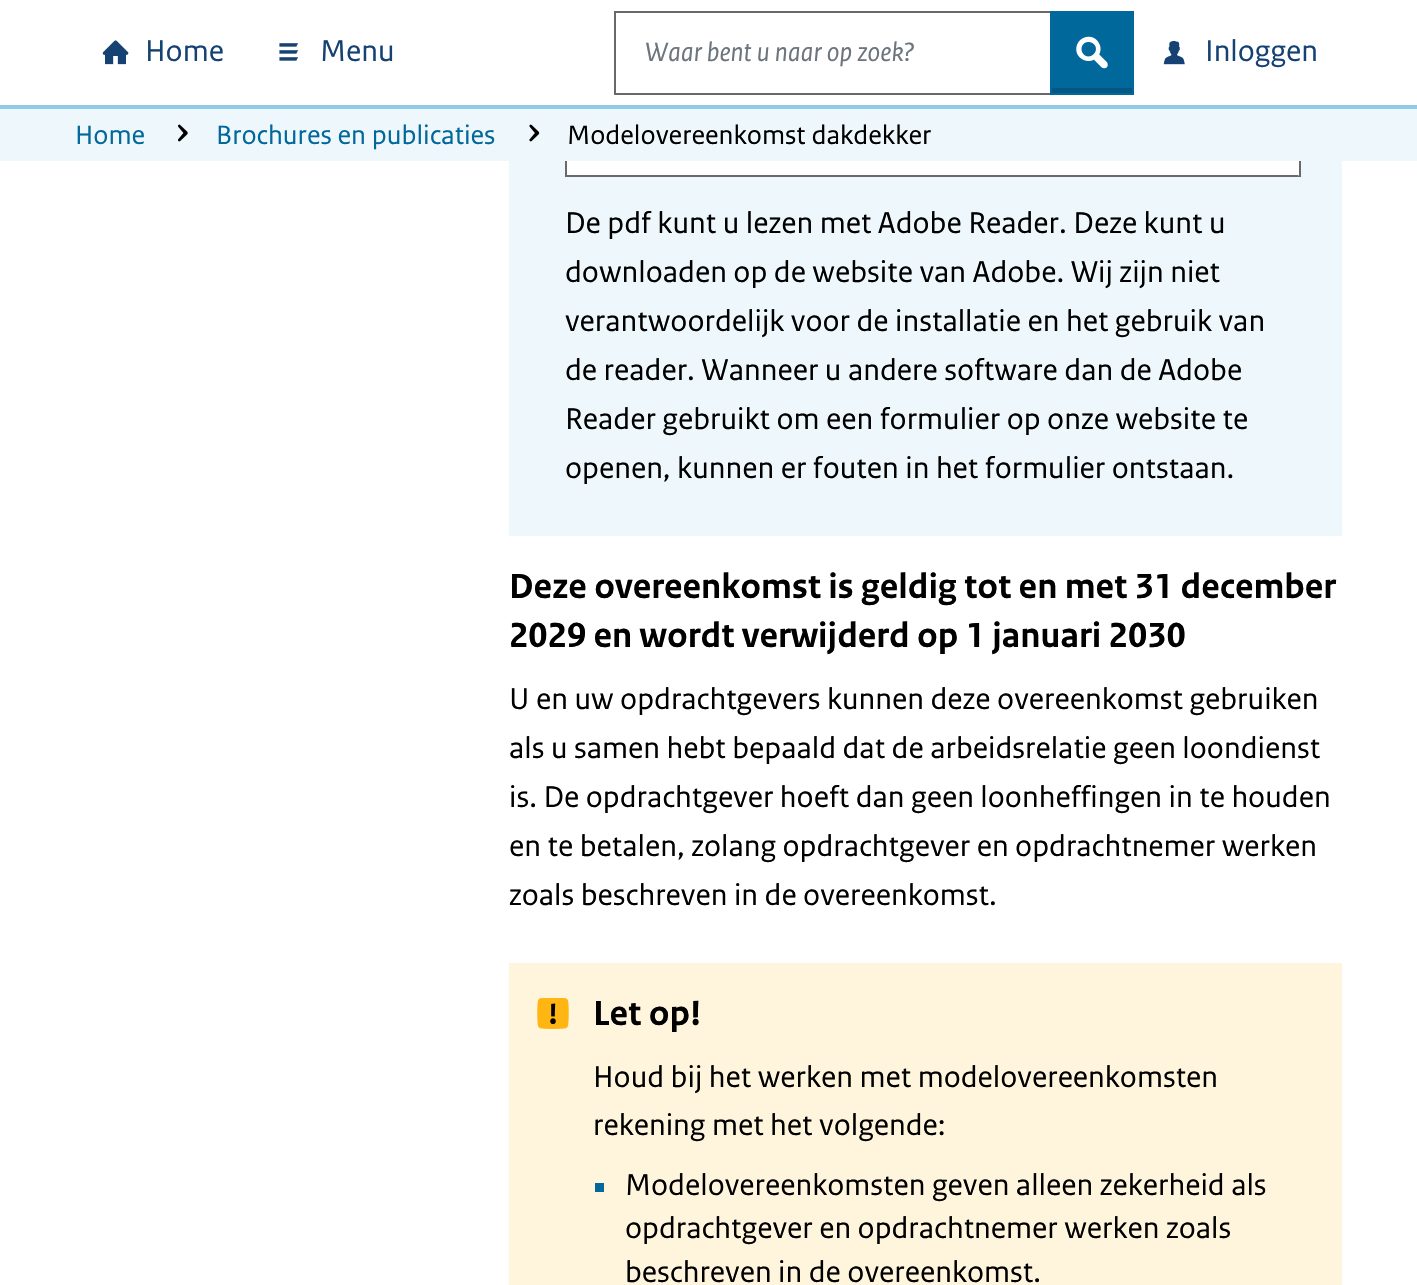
#include "include/core/SkBlurTypes.h"
#include "include/core/SkCanvas.h"
#include "include/core/SkData.h"
#include "include/core/SkFont.h"
#include "include/core/SkFontMgr.h"
#include "include/core/SkImage.h"
#include "include/core/SkMaskFilter.h"
#include "include/core/SkPaint.h"
#include "include/core/SkPathBuilder.h"
#include "include/core/SkTextBlob.h"
#include "include/effects/SkDashPathEffect.h"
#include "include/effects/SkGradientShader.h"
#include "include/utils/SkParsePath.h"

extern sk_sp<SkFontMgr> fontMgr;

void draw(SkCanvas* canvas) {
    SkPaint p;
    p.setAntiAlias(true);
    auto font = [&](const char* family, int weight, float size, bool italic = false) {
        SkFontStyle style(weight, SkFontStyle::kNormal_Width,
            italic ? SkFontStyle::kItalic_Slant : SkFontStyle::kUpright_Slant);
        SkFont result(fontMgr->matchFamilyStyle(family, style), size);
        result.setSubpixel(true);
        return result;
    };
    auto drawPhoto = [&](const char* path, float l, float t, float r, float b) {
        auto image = SkImages::DeferredFromEncodedData(SkData::MakeFromFileName(path));
        canvas->drawImageRect(image, SkRect::MakeLTRB(l, t, r, b), SkSamplingOptions());
    };
    canvas->clear(0xFFFFFFFF);
    p.setColor(0xFF8FCAE7);
    canvas->drawRect(SkRect::MakeLTRB(0, 105, 1417, 109), p);
    drawPhoto("media/1.png", 102, 40, 129, 65);
    auto font1 = font("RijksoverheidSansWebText", 400, 31.5f);
    p.setColor(0xFF154273);
    canvas->drawString("Home", 145, 61, font1, p);
    drawPhoto("media/2.png", 279, 43, 298, 61);
    canvas->drawString("Menu", 320, 61, font1, p);
    p.setStyle(SkPaint::kStroke_Style);
    p.setStrokeWidth(2);
    p.setColor(0xFF696969);
    canvas->drawRect(SkRect::MakeLTRB(615, 12, 1051, 94), p);
    auto font2 = font("RijksoverheidSansWebText", 400, 28, true);
    p.setStyle(SkPaint::kFill_Style);
    p.setColor(0xFF6C757D);
    canvas->drawString("Waar bent u naar op zoek?", 645, 61, font2, p);
    p.setColor(0xFF01689B);
    canvas->drawRect(SkRect::MakeLTRB(1050, 11, 1134, 95), p);
    p.setColor(0xFF015884);
    canvas->drawRect(SkRect::MakeLTRB(1052, 88, 1132, 93), p);
    drawPhoto("media/3.png", 1076, 36, 1108, 69);
    drawPhoto("media/4.png", 1163, 40, 1185, 65);
    p.setColor(0xFF154273);
    canvas->drawString("Inloggen", 1205, 61, font1, p);
    p.setColor(0xFFEEF7FB);
    canvas->drawRect(SkRect::MakeLTRB(0, 109, 1417, 161), p);
    auto font3 = font("RijksoverheidSansWebText", 400, 28);
    p.setColor(0xFF01689B);
    canvas->drawString("Home", 75, 144, font3, p);
    drawPhoto("media/5.png", 178, 124, 188, 142);
    canvas->drawString("Brochures en publicaties", 216, 144, font3, p);
    drawPhoto("media/6.png", 529, 124, 540, 142);
    p.setColor(0xFF000000);
    canvas->drawString("Modelovereenkomst dakdekker", 567, 144, font3, p);
    p.setColor(0xFFEEF7FB);
    canvas->drawRect(SkRect::MakeLTRB(509, 161, 1342, 536), p);
    p.setColor(0xFFFFFFFF);
    canvas->drawRect(SkRect::MakeLTRB(567, 161, 1299, 175), p);
    p.setColor(0xFF696969);
    canvas->drawPath(SkPathBuilder().moveTo(1181, 177).lineTo(565, 177).lineTo(567, 175).lineTo(1180, 175).close().detach(), p);
    canvas->drawRect(SkRect::MakeLTRB(565, 161, 567, 177), p);
    canvas->drawRect(SkRect::MakeLTRB(1299, 161, 1301, 177), p);
    canvas->drawPath(SkPathBuilder().moveTo(1300, 177).lineTo(1178, 177).lineTo(1180, 175).lineTo(1298, 175).close().detach(), p);
    p.setColor(0xFF000000);
    {
        const struct { const char* s; float x, y; } items[] = {
            {"De pdf kunt u lezen met Adobe Reader. Deze kunt u", 565, 233},
            {"downloaden op de website van Adobe. Wij zijn niet", 565, 282},
            {"verantwoordelijk voor de installatie en het gebruik van", 565, 331},
            {"de reader. Wanneer u andere software dan de Adobe", 565, 380},
            {"Reader gebruikt om een formulier op onze website te", 565, 429},
            {"openen, kunnen er fouten in het formulier ontstaan.", 565, 478},
        };
        for (auto [s, x, y] : items) {
            canvas->drawString(s, x, y, font1, p);
        }
    }
    auto font4 = font("RijksoverheidSansWebText", 700, 36.75f);
    canvas->drawString("Deze overeenkomst is geldig tot en met 31 december", 509, 598, font4, p);
    canvas->drawString("2029 en wordt verwijderd op 1 januari 2030", 509, 647, font4, p);
    {
        const struct { const char* s; float x, y; } items[] = {
            {"U en uw opdrachtgevers kunnen deze overeenkomst gebruiken", 509, 709},
            {"als u samen hebt bepaald dat de arbeidsrelatie geen loondienst", 509, 758},
            {"is. De opdrachtgever hoeft dan geen loonheffingen in te houden", 509, 807},
            {"en te betalen, zolang opdrachtgever en opdrachtnemer werken", 509, 856},
            {"zoals beschreven in de overeenkomst.", 509, 905},
        };
        for (auto [s, x, y] : items) {
            canvas->drawString(s, x, y, font1, p);
        }
    }
    p.setColor(0xFFFFF4DC);
    canvas->drawRect(SkRect::MakeLTRB(509, 963, 1342, 1285), p);
    drawPhoto("media/7.png", 537, 998, 569, 1029);
    p.setColor(0xFF000000);
    canvas->drawString("Let op!", 593, 1025, font4, p);
    canvas->drawString("Houd bij het werken met modelovereenkomsten", 593, 1087, font1, p);
    canvas->drawString("rekening met het volgende:", 593, 1135, font1, p);
    p.setColor(0xFF01689B);
    canvas->drawRect(SkRect::MakeLTRB(595, 1183, 604, 1192), p);
    p.setColor(0xFF000000);
    {
        const struct { const char* s; float x, y; } items[] = {
            {"Modelovereenkomsten geven alleen zekerheid als", 625, 1195},
            {"opdrachtgever en opdrachtnemer werken zoals", 625, 1238},
            {"beschreven in de overeenkomst.", 625, 1282},
        };
        for (auto [s, x, y] : items) {
            canvas->drawString(s, x, y, font1, p);
        }
    }
}
